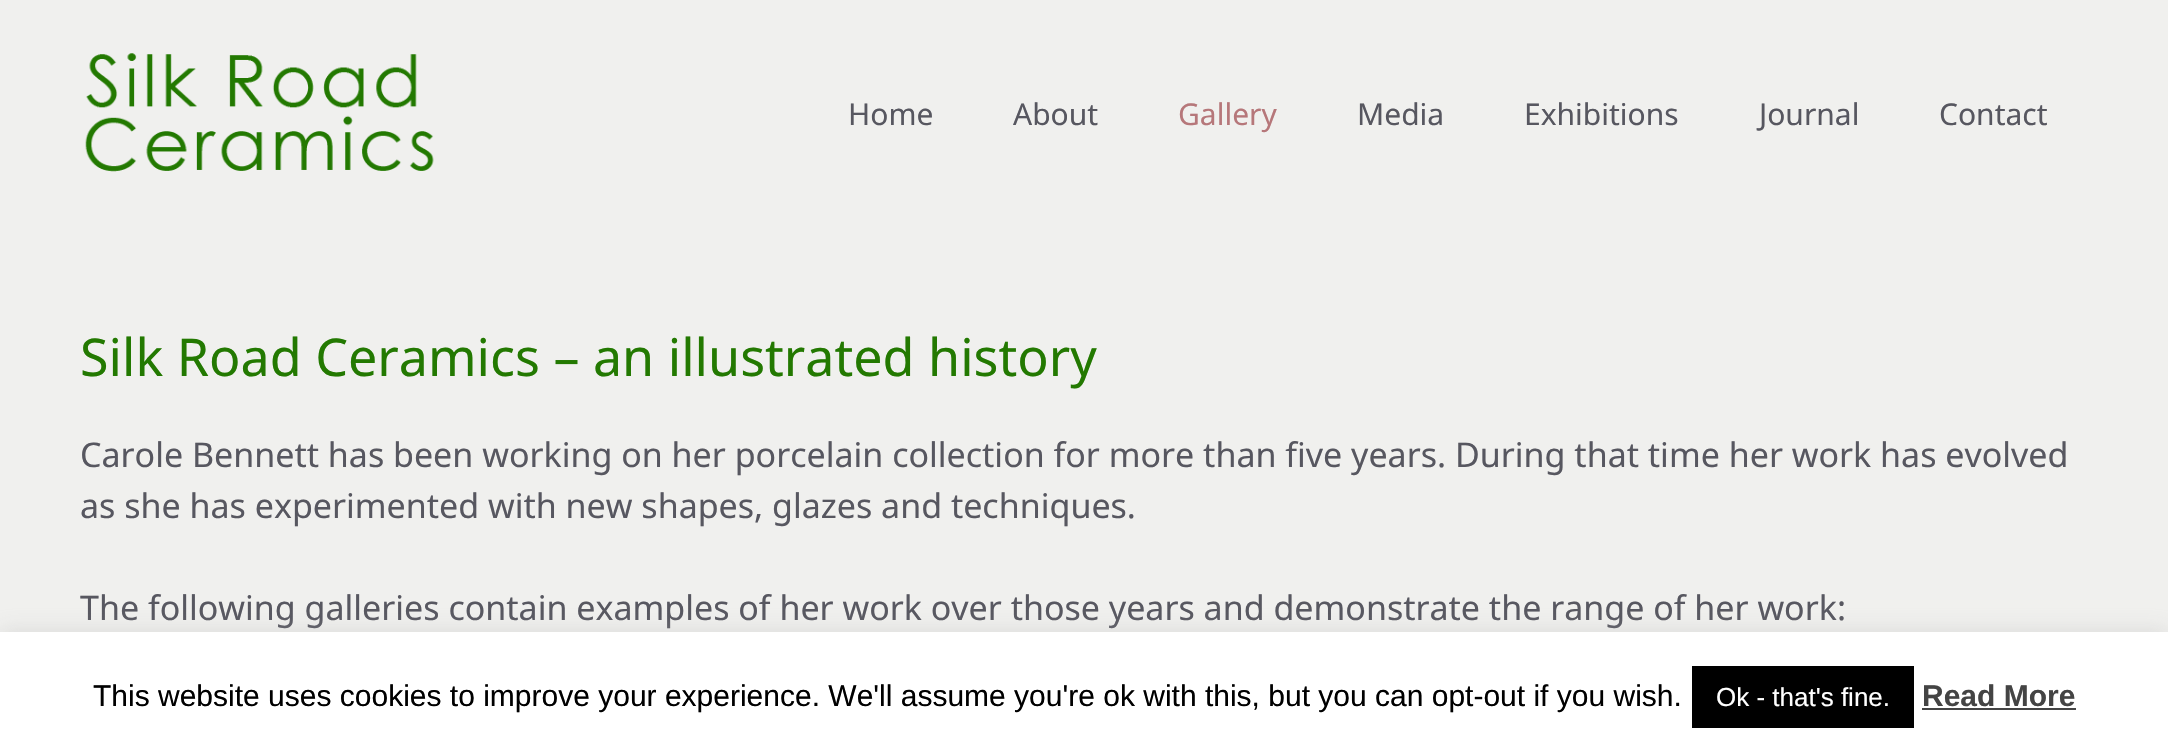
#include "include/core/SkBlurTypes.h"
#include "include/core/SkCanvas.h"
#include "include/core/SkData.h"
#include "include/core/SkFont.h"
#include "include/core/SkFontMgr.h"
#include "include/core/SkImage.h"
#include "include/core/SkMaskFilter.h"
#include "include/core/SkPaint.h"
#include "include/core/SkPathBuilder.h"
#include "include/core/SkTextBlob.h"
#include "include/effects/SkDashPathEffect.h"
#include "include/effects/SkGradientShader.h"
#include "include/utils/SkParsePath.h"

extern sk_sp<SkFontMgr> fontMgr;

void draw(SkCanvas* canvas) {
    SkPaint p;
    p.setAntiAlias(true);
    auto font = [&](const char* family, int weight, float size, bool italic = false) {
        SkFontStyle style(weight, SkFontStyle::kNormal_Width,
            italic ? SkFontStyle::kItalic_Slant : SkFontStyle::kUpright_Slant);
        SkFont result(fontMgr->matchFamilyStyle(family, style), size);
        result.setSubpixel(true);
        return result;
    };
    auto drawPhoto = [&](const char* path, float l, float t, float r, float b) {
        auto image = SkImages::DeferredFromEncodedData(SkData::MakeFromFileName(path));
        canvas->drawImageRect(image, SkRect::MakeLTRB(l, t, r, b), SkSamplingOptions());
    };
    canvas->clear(0xFFF0F0EE);
    drawPhoto("media/1.png", 85, 53, 434, 172);
    auto font1 = font("Noto Sans", 400, 30);
    p.setColor(0xFF575760);
    canvas->drawString("Home", 848, 125, font1, p);
    canvas->drawString("About", 1013, 125, font1, p);
    p.setColor(0xFFB6777A);
    canvas->drawString("Gallery", 1178, 125, font1, p);
    p.setColor(0xFF575760);
    {
        const struct { const char* s; float x, y; } items[] = {
            {"Media", 1357, 125},
            {"Exhibitions", 1524, 125},
            {"Journal", 1759, 125},
            {"Contact", 1939, 125},
        };
        for (auto [s, x, y] : items) {
            canvas->drawString(s, x, y, font1, p);
        }
    }
    auto font2 = font("Noto Sans", 400, 52);
    p.setColor(0xFF237901);
    canvas->drawString("Silk Road Ceramics – an illustrated history", 80, 376, font2, p);
    auto font3 = font("Noto Sans", 400, 34);
    p.setColor(0xFF575760);
    {
        const struct { const char* s; float x, y; } items[] = {
            {"Carole Bennett has been working on her porcelain collection for more than five years. During that time her work has evolved", 80, 467},
            {"as she has experimented with new shapes, glazes and techniques.", 80, 518},
            {"The following galleries contain examples of her work over those years and demonstrate the range of her work:", 80, 620},
        };
        for (auto [s, x, y] : items) {
            canvas->drawString(s, x, y, font3, p);
        }
    }
    p.setColor(0x4DACABAB);
    p.setMaskFilter(SkMaskFilter::MakeBlur(kNormal_SkBlurStyle, 10));
    canvas->drawRect(SkRect::MakeLTRB(0, 630, 2168, 750), p);
    p.setMaskFilter(nullptr);
    p.setColor(0xFFFFFFFF);
    canvas->drawRect(SkRect::MakeLTRB(0, 632, 2168, 752), p);
    auto font4 = font("Liberation Sans", 400, 30);
    p.setColor(0xFF000000);
    canvas->drawString("This website uses cookies to improve your experience. We'll assume you're ok with this, but you can opt-out if you wish.", 93, 706, font4, p);
    canvas->drawRect(SkRect::MakeLTRB(1692, 666, 1914, 728), p);
    auto font5 = font("Liberation Sans", 400, 26);
    p.setColor(0xFFFFFFFF);
    canvas->drawString("Ok - that's fine.", 1716, 706, font5, p);
    auto font6 = font("Liberation Sans", 700, 30);
    p.setColor(0xFF444444);
    canvas->drawString("Read More", 1922, 706, font6, p);
    canvas->drawRect(SkRect::MakeLTRB(1922, 708, 2076, 710), p);
}
